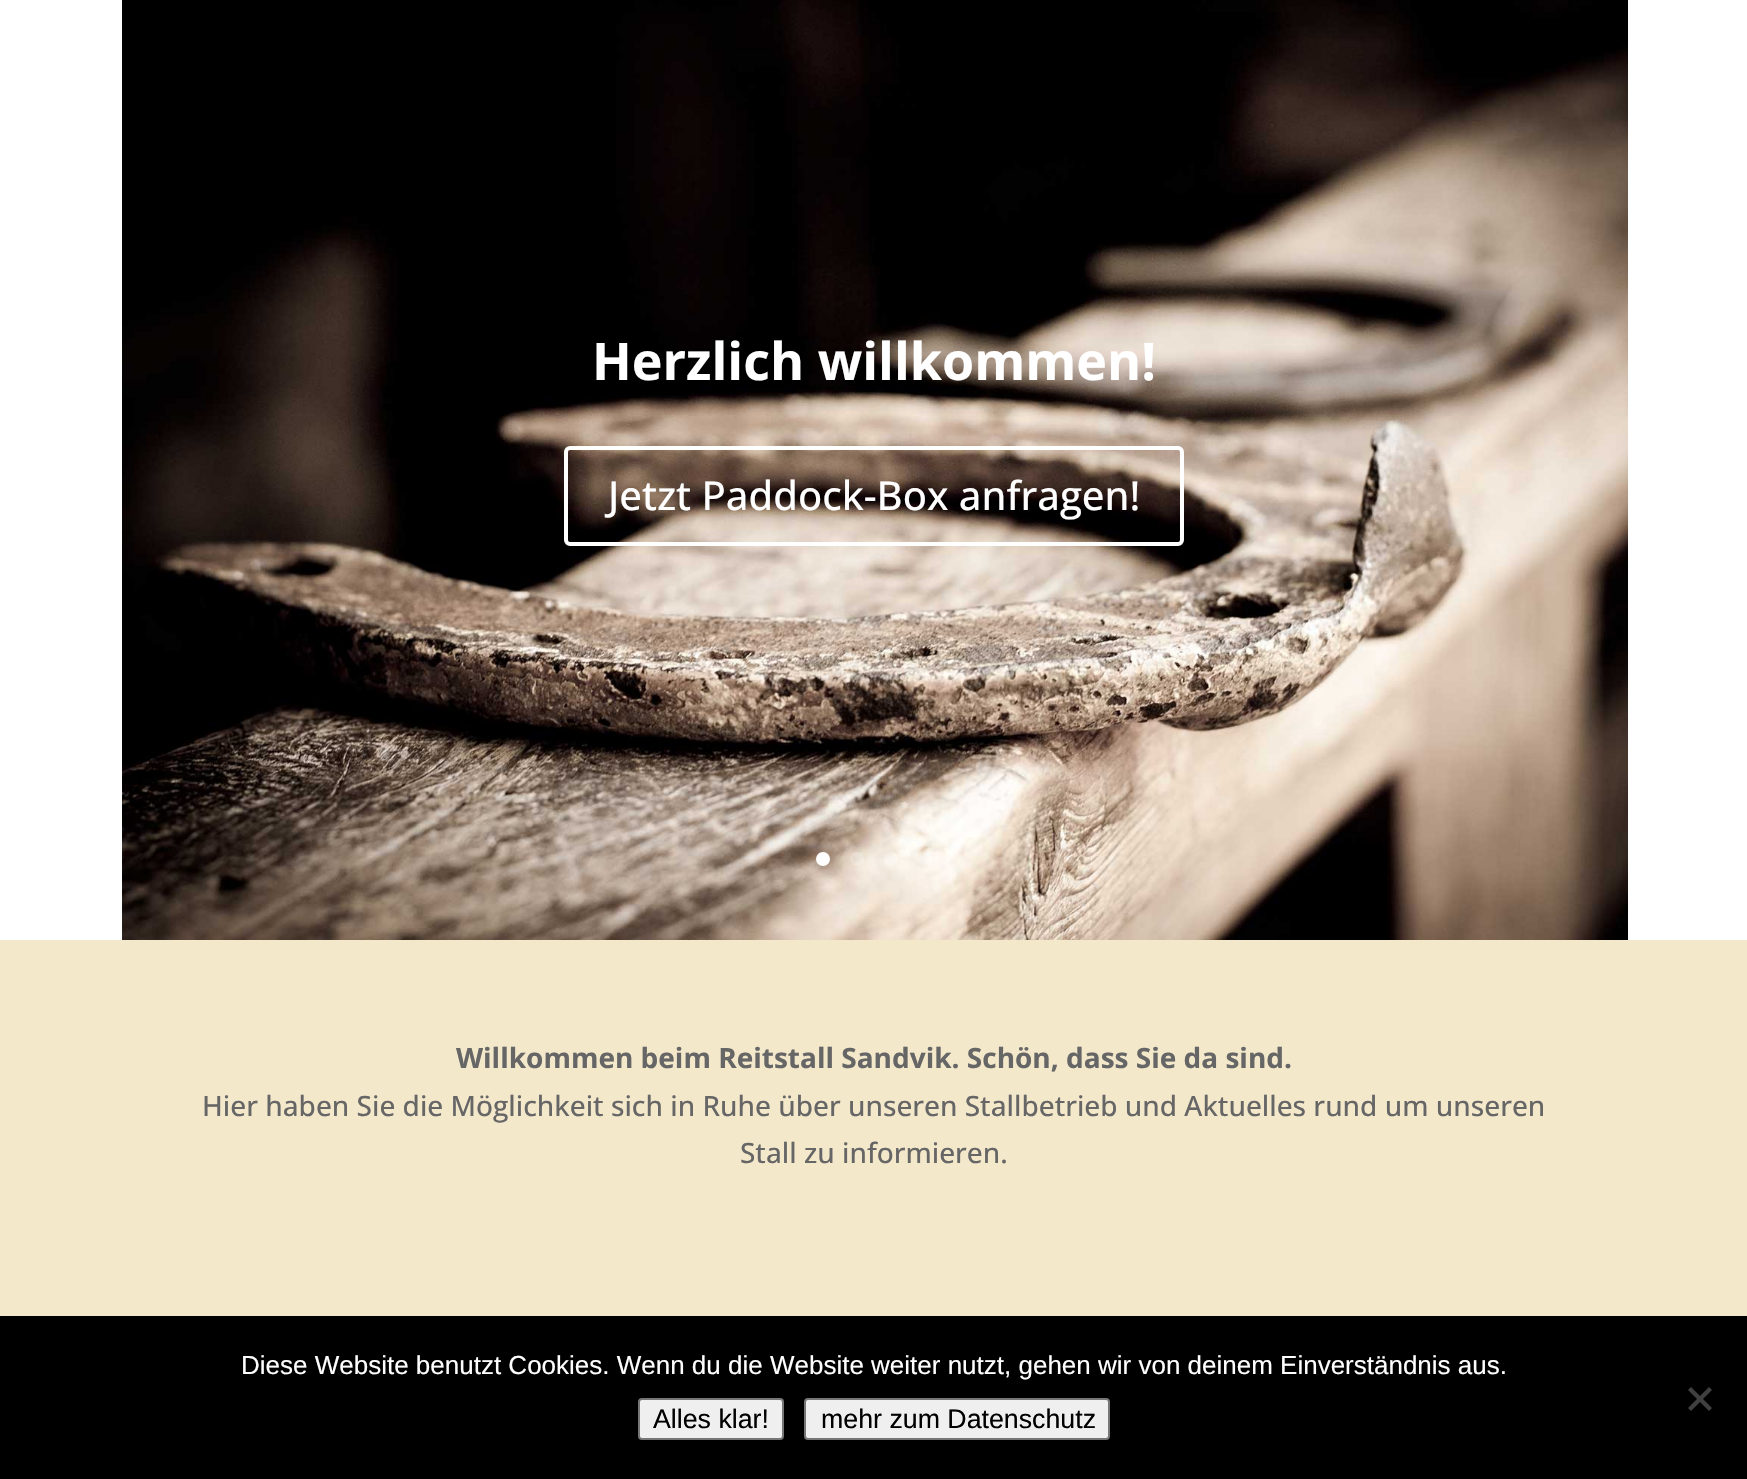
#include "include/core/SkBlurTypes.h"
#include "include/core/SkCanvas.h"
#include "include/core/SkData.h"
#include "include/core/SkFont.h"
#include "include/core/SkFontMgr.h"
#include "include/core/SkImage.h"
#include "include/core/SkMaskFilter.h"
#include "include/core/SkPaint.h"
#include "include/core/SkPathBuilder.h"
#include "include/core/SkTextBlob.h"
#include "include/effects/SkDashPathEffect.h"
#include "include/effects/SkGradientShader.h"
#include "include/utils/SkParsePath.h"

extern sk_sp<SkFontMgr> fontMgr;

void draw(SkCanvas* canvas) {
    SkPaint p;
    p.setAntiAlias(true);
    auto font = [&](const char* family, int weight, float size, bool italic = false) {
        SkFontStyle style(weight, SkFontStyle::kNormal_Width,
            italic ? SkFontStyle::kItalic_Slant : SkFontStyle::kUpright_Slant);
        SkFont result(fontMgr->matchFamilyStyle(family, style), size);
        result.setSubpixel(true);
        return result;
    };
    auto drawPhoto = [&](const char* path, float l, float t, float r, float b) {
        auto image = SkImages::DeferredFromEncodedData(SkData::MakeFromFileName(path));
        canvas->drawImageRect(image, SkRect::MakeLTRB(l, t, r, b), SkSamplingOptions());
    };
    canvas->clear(0xFFF4E8CB);
    p.setColor(0xFFFFFFFF);
    canvas->drawRect(SkRect::MakeLTRB(0, 0, 1747, 940), p);
    drawPhoto("media/1.png", 122, 0, 1628, 940);
    auto font1 = font("Open Sans", 700, 52);
    canvas->drawString("Herzlich willkommen!", 592, 380, font1, p);
    p.setStyle(SkPaint::kStroke_Style);
    p.setStrokeWidth(4);
    canvas->drawRoundRect(SkRect::MakeLTRB(566, 448, 1182, 544), 4, 4, p);
    auto font2 = font("Open Sans", 500, 40);
    p.setStyle(SkPaint::kFill_Style);
    canvas->drawString("Jetzt Paddock-Box anfragen!", 608, 510, font2, p);
    canvas->drawCircle(823, 859, 7, p);
    p.setColor(0x40FFFFFF);
    canvas->drawCircle(857, 859, 7, p);
    canvas->drawCircle(891, 859, 7, p);
    canvas->drawCircle(925, 859, 7, p);
    auto font3 = font("Open Sans", 700, 28);
    p.setColor(0xFF666666);
    canvas->drawString("Willkommen beim Reitstall Sandvik. Schön, dass Sie da sind.", 456, 1068, font3, p);
    auto font4 = font("Open Sans", 500, 28);
    canvas->drawString("Hier haben Sie die Möglichkeit sich in Ruhe über unseren Stallbetrieb und Aktuelles rund um unseren", 202, 1116, font4, p);
    canvas->drawString("Stall zu informieren.", 740, 1163, font4, p);
    p.setColor(0xFF000000);
    canvas->drawRect(SkRect::MakeLTRB(0, 1316, 1747, 1479), p);
    auto font5 = font("Liberation Sans", 400, 26);
    p.setColor(0xFFFFFFFF);
    canvas->drawString("Diese Website benutzt Cookies. Wenn du die Website weiter nutzt, gehen wir von deinem Einverständnis aus.", 241, 1374, font5, p);
    p.setColor(0xFF404040);
    canvas->drawPath(SkPathBuilder().moveTo(1709, 1387).lineTo(1712, 1390).lineTo(1691, 1411).lineTo(1688, 1408).close().detach(), p);
    canvas->drawPath(SkPathBuilder().moveTo(1688, 1390).lineTo(1691, 1387).lineTo(1712, 1408).lineTo(1709, 1411).close().detach(), p);
    p.setColor(0xFFEFEFEF);
    canvas->drawRoundRect(SkRect::MakeLTRB(639, 1399, 783, 1439), 3, 3, p);
    p.setStyle(SkPaint::kStroke_Style);
    p.setStrokeWidth(2);
    p.setColor(0xFF767676);
    canvas->drawRoundRect(SkRect::MakeLTRB(639, 1399, 783, 1439), 3, 3, p);
    auto font6 = font("Liberation Sans", 400, 26.75f);
    p.setStyle(SkPaint::kFill_Style);
    p.setColor(0xFF000000);
    canvas->drawString("Alles klar!", 653, 1428, font6, p);
    p.setColor(0xFFEFEFEF);
    canvas->drawRoundRect(SkRect::MakeLTRB(805, 1399, 1109, 1439), 3, 3, p);
    p.setStyle(SkPaint::kStroke_Style);
    p.setColor(0xFF767676);
    canvas->drawRoundRect(SkRect::MakeLTRB(805, 1399, 1109, 1439), 3, 3, p);
    p.setStyle(SkPaint::kFill_Style);
    p.setColor(0xFF000000);
    canvas->drawString("mehr zum Datenschutz", 821, 1428, font6, p);
}
